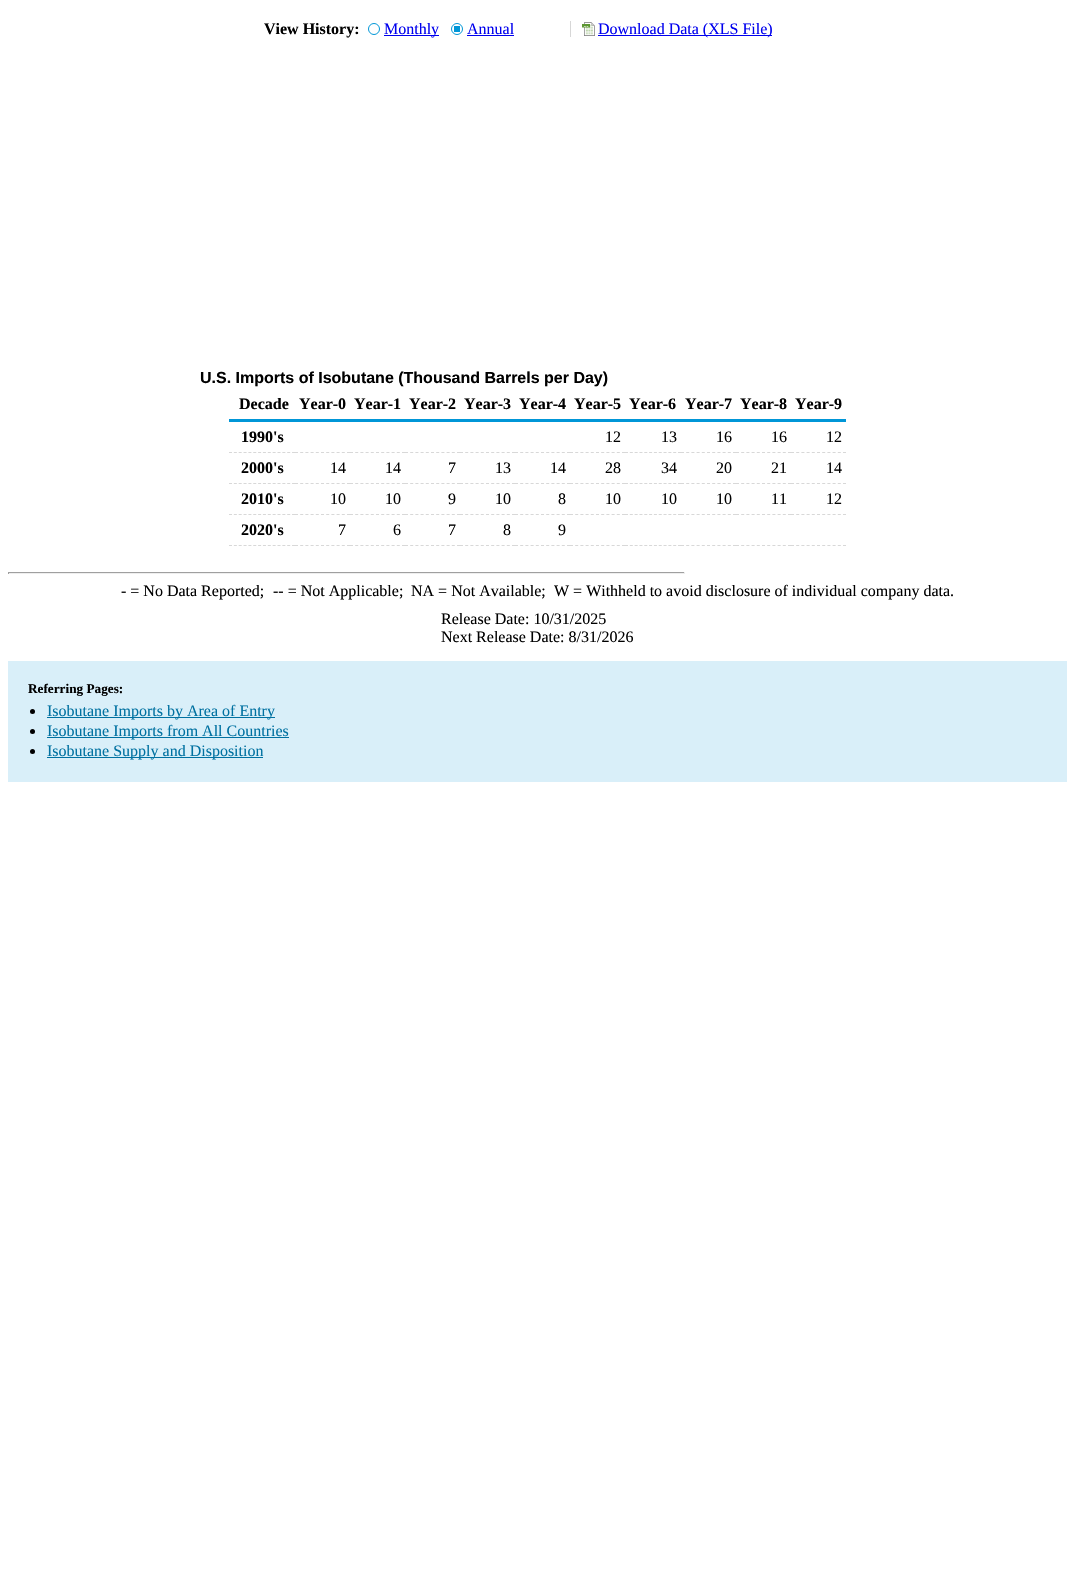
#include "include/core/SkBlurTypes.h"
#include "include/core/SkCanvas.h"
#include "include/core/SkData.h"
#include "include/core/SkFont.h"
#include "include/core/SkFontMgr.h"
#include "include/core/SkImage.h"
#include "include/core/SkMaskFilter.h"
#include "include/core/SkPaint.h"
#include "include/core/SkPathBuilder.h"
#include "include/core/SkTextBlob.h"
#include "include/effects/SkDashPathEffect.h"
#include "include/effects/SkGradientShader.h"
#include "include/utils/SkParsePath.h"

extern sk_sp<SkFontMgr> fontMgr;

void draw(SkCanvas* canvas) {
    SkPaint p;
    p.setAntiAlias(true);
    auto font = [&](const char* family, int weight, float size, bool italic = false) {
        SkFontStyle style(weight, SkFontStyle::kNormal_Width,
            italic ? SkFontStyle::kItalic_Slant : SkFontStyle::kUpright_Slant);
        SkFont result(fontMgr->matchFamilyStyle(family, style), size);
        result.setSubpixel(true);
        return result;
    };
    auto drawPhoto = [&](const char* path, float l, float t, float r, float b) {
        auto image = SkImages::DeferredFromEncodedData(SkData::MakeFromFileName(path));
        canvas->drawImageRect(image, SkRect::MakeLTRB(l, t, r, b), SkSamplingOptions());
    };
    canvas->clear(0xFFFFFFFF);
    auto font1 = font("Liberation Serif", 700, 16);
    p.setColor(0xFF000000);
    canvas->drawString("View History:", 264, 34, font1, p);
    p.setStyle(SkPaint::kStroke_Style);
    p.setStrokeWidth(1);
    p.setColor(0xFF0096D7);
    canvas->drawCircle(374, 29, 5.5f, p);
    p.setStyle(SkPaint::kFill_Style);
    p.setColor(0xFF0000EE);
    canvas->drawRect(SkRect::MakeLTRB(384, 35, 439, 36), p);
    auto font2 = font("Liberation Serif", 400, 16);
    canvas->drawString("Monthly", 384, 34, font2, p);
    p.setColor(0xFF0096D7);
    canvas->drawRect(SkRect::MakeLTRB(454, 26, 460, 32), p);
    p.setStyle(SkPaint::kStroke_Style);
    canvas->drawCircle(457, 29, 5.5f, p);
    p.setStyle(SkPaint::kFill_Style);
    p.setColor(0xFF0000EE);
    canvas->drawString("Annual", 467, 34, font2, p);
    canvas->drawRect(SkRect::MakeLTRB(467, 35, 514, 36), p);
    p.setColor(0xFFD7D7D7);
    canvas->drawRect(SkRect::MakeLTRB(570, 21, 571, 37), p);
    drawPhoto("media/1.png", 582, 22, 595, 36);
    p.setColor(0xFF0000EE);
    canvas->drawRect(SkRect::MakeLTRB(598, 35, 772, 36), p);
    canvas->drawString("Download Data (XLS File)", 598, 34, font2, p);
    auto font3 = font("Liberation Sans", 700, 16);
    p.setColor(0xFF000000);
    canvas->drawString("U.S. Imports of Isobutane (Thousand Barrels per Day)", 200, 383, font3, p);
    p.setColor(0xFF0096D7);
    canvas->drawRect(SkRect::MakeLTRB(229, 419, 846, 422), p);
    p.setColor(0xFF000000);
    {
        const struct { const char* s; float x, y; } items[] = {
            {"Decade", 239, 409},
            {"Year-0", 299, 409},
            {"Year-1", 354, 409},
            {"Year-2", 409, 409},
            {"Year-3", 464, 409},
            {"Year-4", 519, 409},
            {"Year-5", 574, 409},
            {"Year-6", 629, 409},
            {"Year-7", 685, 409},
            {"Year-8", 740, 409},
            {"Year-9", 795, 409},
        };
        for (auto [s, x, y] : items) {
            canvas->drawString(s, x, y, font1, p);
        }
    }
    p.setStyle(SkPaint::kStroke_Style);
    p.setColor(0xFFD8D8D8);
    p.setPathEffect(SkDashPathEffect::Make({{3, 1.85f}}, 0));
    canvas->drawPath(SkPathBuilder().moveTo(229, 452.5f).lineTo(295, 452.5f).detach(), p);
    p.setPathEffect(nullptr);
    p.setStyle(SkPaint::kFill_Style);
    p.setColor(0xFF000000);
    canvas->drawString("1990's", 241, 442, font1, p);
    p.setStyle(SkPaint::kStroke_Style);
    p.setColor(0xFFD8D8D8);
    p.setPathEffect(SkDashPathEffect::Make({{3, 2.2f}}, 0));
    canvas->drawPath(SkPathBuilder().moveTo(570, 452.5f).lineTo(625, 452.5f).detach(), p);
    p.setPathEffect(nullptr);
    p.setStyle(SkPaint::kFill_Style);
    p.setColor(0xFF000000);
    canvas->drawString("12", 605, 442, font2, p);
    p.setStyle(SkPaint::kStroke_Style);
    p.setColor(0xFFD8D8D8);
    p.setPathEffect(SkDashPathEffect::Make({{3, 1.82f}}, 0));
    canvas->drawPath(SkPathBuilder().moveTo(625, 452.5f).lineTo(681, 452.5f).detach(), p);
    p.setPathEffect(nullptr);
    p.setStyle(SkPaint::kFill_Style);
    p.setColor(0xFF000000);
    canvas->drawString("13", 661, 442, font2, p);
    p.setStyle(SkPaint::kStroke_Style);
    p.setColor(0xFFD8D8D8);
    p.setPathEffect(SkDashPathEffect::Make({{3, 2.2f}}, 0));
    canvas->drawPath(SkPathBuilder().moveTo(681, 452.5f).lineTo(736, 452.5f).detach(), p);
    p.setPathEffect(nullptr);
    p.setStyle(SkPaint::kFill_Style);
    p.setColor(0xFF000000);
    canvas->drawString("16", 716, 442, font2, p);
    p.setStyle(SkPaint::kStroke_Style);
    p.setColor(0xFFD8D8D8);
    p.setPathEffect(SkDashPathEffect::Make({{3, 2.2f}}, 0));
    canvas->drawPath(SkPathBuilder().moveTo(736, 452.5f).lineTo(791, 452.5f).detach(), p);
    p.setPathEffect(nullptr);
    p.setStyle(SkPaint::kFill_Style);
    p.setColor(0xFF000000);
    canvas->drawString("16", 771, 442, font2, p);
    p.setStyle(SkPaint::kStroke_Style);
    p.setColor(0xFFD8D8D8);
    p.setPathEffect(SkDashPathEffect::Make({{3, 2.2f}}, 0));
    canvas->drawPath(SkPathBuilder().moveTo(791, 452.5f).lineTo(846, 452.5f).detach(), p);
    p.setPathEffect(nullptr);
    p.setStyle(SkPaint::kFill_Style);
    p.setColor(0xFF000000);
    canvas->drawString("12", 826, 442, font2, p);
    p.setStyle(SkPaint::kStroke_Style);
    p.setColor(0xFFD8D8D8);
    p.setPathEffect(SkDashPathEffect::Make({{3, 2.2f}}, 0));
    canvas->drawPath(SkPathBuilder().moveTo(295, 452.5f).lineTo(350, 452.5f).detach(), p);
    p.setPathEffect(nullptr);
    p.setPathEffect(SkDashPathEffect::Make({{3, 2.2f}}, 0));
    canvas->drawPath(SkPathBuilder().moveTo(350, 452.5f).lineTo(405, 452.5f).detach(), p);
    p.setPathEffect(nullptr);
    p.setPathEffect(SkDashPathEffect::Make({{3, 2.2f}}, 0));
    canvas->drawPath(SkPathBuilder().moveTo(405, 452.5f).lineTo(460, 452.5f).detach(), p);
    p.setPathEffect(nullptr);
    p.setPathEffect(SkDashPathEffect::Make({{3, 2.2f}}, 0));
    canvas->drawPath(SkPathBuilder().moveTo(460, 452.5f).lineTo(515, 452.5f).detach(), p);
    p.setPathEffect(nullptr);
    p.setPathEffect(SkDashPathEffect::Make({{3, 2.2f}}, 0));
    canvas->drawPath(SkPathBuilder().moveTo(515, 452.5f).lineTo(570, 452.5f).detach(), p);
    p.setPathEffect(nullptr);
    p.setPathEffect(SkDashPathEffect::Make({{3, 1.85f}}, 0));
    canvas->drawPath(SkPathBuilder().moveTo(229, 483.5f).lineTo(295, 483.5f).detach(), p);
    p.setPathEffect(nullptr);
    p.setStyle(SkPaint::kFill_Style);
    p.setColor(0xFF000000);
    canvas->drawString("2000's", 241, 473, font1, p);
    p.setStyle(SkPaint::kStroke_Style);
    p.setColor(0xFFD8D8D8);
    p.setPathEffect(SkDashPathEffect::Make({{3, 2.2f}}, 0));
    canvas->drawPath(SkPathBuilder().moveTo(295, 483.5f).lineTo(350, 483.5f).detach(), p);
    p.setPathEffect(nullptr);
    p.setStyle(SkPaint::kFill_Style);
    p.setColor(0xFF000000);
    canvas->drawString("14", 330, 473, font2, p);
    p.setStyle(SkPaint::kStroke_Style);
    p.setColor(0xFFD8D8D8);
    p.setPathEffect(SkDashPathEffect::Make({{3, 2.2f}}, 0));
    canvas->drawPath(SkPathBuilder().moveTo(350, 483.5f).lineTo(405, 483.5f).detach(), p);
    p.setPathEffect(nullptr);
    p.setStyle(SkPaint::kFill_Style);
    p.setColor(0xFF000000);
    canvas->drawString("14", 385, 473, font2, p);
    p.setStyle(SkPaint::kStroke_Style);
    p.setColor(0xFFD8D8D8);
    p.setPathEffect(SkDashPathEffect::Make({{3, 2.2f}}, 0));
    canvas->drawPath(SkPathBuilder().moveTo(405, 483.5f).lineTo(460, 483.5f).detach(), p);
    p.setPathEffect(nullptr);
    p.setStyle(SkPaint::kFill_Style);
    p.setColor(0xFF000000);
    canvas->drawString("7", 448, 473, font2, p);
    p.setStyle(SkPaint::kStroke_Style);
    p.setColor(0xFFD8D8D8);
    p.setPathEffect(SkDashPathEffect::Make({{3, 2.2f}}, 0));
    canvas->drawPath(SkPathBuilder().moveTo(460, 483.5f).lineTo(515, 483.5f).detach(), p);
    p.setPathEffect(nullptr);
    p.setStyle(SkPaint::kFill_Style);
    p.setColor(0xFF000000);
    canvas->drawString("13", 495, 473, font2, p);
    p.setStyle(SkPaint::kStroke_Style);
    p.setColor(0xFFD8D8D8);
    p.setPathEffect(SkDashPathEffect::Make({{3, 2.2f}}, 0));
    canvas->drawPath(SkPathBuilder().moveTo(515, 483.5f).lineTo(570, 483.5f).detach(), p);
    p.setPathEffect(nullptr);
    p.setStyle(SkPaint::kFill_Style);
    p.setColor(0xFF000000);
    canvas->drawString("14", 550, 473, font2, p);
    p.setStyle(SkPaint::kStroke_Style);
    p.setColor(0xFFD8D8D8);
    p.setPathEffect(SkDashPathEffect::Make({{3, 2.2f}}, 0));
    canvas->drawPath(SkPathBuilder().moveTo(570, 483.5f).lineTo(625, 483.5f).detach(), p);
    p.setPathEffect(nullptr);
    p.setStyle(SkPaint::kFill_Style);
    p.setColor(0xFF000000);
    canvas->drawString("28", 605, 473, font2, p);
    p.setStyle(SkPaint::kStroke_Style);
    p.setColor(0xFFD8D8D8);
    p.setPathEffect(SkDashPathEffect::Make({{3, 1.82f}}, 0));
    canvas->drawPath(SkPathBuilder().moveTo(625, 483.5f).lineTo(681, 483.5f).detach(), p);
    p.setPathEffect(nullptr);
    p.setStyle(SkPaint::kFill_Style);
    p.setColor(0xFF000000);
    canvas->drawString("34", 661, 473, font2, p);
    p.setStyle(SkPaint::kStroke_Style);
    p.setColor(0xFFD8D8D8);
    p.setPathEffect(SkDashPathEffect::Make({{3, 2.2f}}, 0));
    canvas->drawPath(SkPathBuilder().moveTo(681, 483.5f).lineTo(736, 483.5f).detach(), p);
    p.setPathEffect(nullptr);
    p.setStyle(SkPaint::kFill_Style);
    p.setColor(0xFF000000);
    canvas->drawString("20", 716, 473, font2, p);
    p.setStyle(SkPaint::kStroke_Style);
    p.setColor(0xFFD8D8D8);
    p.setPathEffect(SkDashPathEffect::Make({{3, 2.2f}}, 0));
    canvas->drawPath(SkPathBuilder().moveTo(736, 483.5f).lineTo(791, 483.5f).detach(), p);
    p.setPathEffect(nullptr);
    p.setStyle(SkPaint::kFill_Style);
    p.setColor(0xFF000000);
    canvas->drawString("21", 771, 473, font2, p);
    p.setStyle(SkPaint::kStroke_Style);
    p.setColor(0xFFD8D8D8);
    p.setPathEffect(SkDashPathEffect::Make({{3, 2.2f}}, 0));
    canvas->drawPath(SkPathBuilder().moveTo(791, 483.5f).lineTo(846, 483.5f).detach(), p);
    p.setPathEffect(nullptr);
    p.setStyle(SkPaint::kFill_Style);
    p.setColor(0xFF000000);
    canvas->drawString("14", 826, 473, font2, p);
    p.setStyle(SkPaint::kStroke_Style);
    p.setColor(0xFFD8D8D8);
    p.setPathEffect(SkDashPathEffect::Make({{3, 1.85f}}, 0));
    canvas->drawPath(SkPathBuilder().moveTo(229, 514.5f).lineTo(295, 514.5f).detach(), p);
    p.setPathEffect(nullptr);
    p.setStyle(SkPaint::kFill_Style);
    p.setColor(0xFF000000);
    canvas->drawString("2010's", 241, 504, font1, p);
    p.setStyle(SkPaint::kStroke_Style);
    p.setColor(0xFFD8D8D8);
    p.setPathEffect(SkDashPathEffect::Make({{3, 2.2f}}, 0));
    canvas->drawPath(SkPathBuilder().moveTo(295, 514.5f).lineTo(350, 514.5f).detach(), p);
    p.setPathEffect(nullptr);
    p.setStyle(SkPaint::kFill_Style);
    p.setColor(0xFF000000);
    canvas->drawString("10", 330, 504, font2, p);
    p.setStyle(SkPaint::kStroke_Style);
    p.setColor(0xFFD8D8D8);
    p.setPathEffect(SkDashPathEffect::Make({{3, 2.2f}}, 0));
    canvas->drawPath(SkPathBuilder().moveTo(350, 514.5f).lineTo(405, 514.5f).detach(), p);
    p.setPathEffect(nullptr);
    p.setStyle(SkPaint::kFill_Style);
    p.setColor(0xFF000000);
    canvas->drawString("10", 385, 504, font2, p);
    p.setStyle(SkPaint::kStroke_Style);
    p.setColor(0xFFD8D8D8);
    p.setPathEffect(SkDashPathEffect::Make({{3, 2.2f}}, 0));
    canvas->drawPath(SkPathBuilder().moveTo(405, 514.5f).lineTo(460, 514.5f).detach(), p);
    p.setPathEffect(nullptr);
    p.setStyle(SkPaint::kFill_Style);
    p.setColor(0xFF000000);
    canvas->drawString("9", 448, 504, font2, p);
    p.setStyle(SkPaint::kStroke_Style);
    p.setColor(0xFFD8D8D8);
    p.setPathEffect(SkDashPathEffect::Make({{3, 2.2f}}, 0));
    canvas->drawPath(SkPathBuilder().moveTo(460, 514.5f).lineTo(515, 514.5f).detach(), p);
    p.setPathEffect(nullptr);
    p.setStyle(SkPaint::kFill_Style);
    p.setColor(0xFF000000);
    canvas->drawString("10", 495, 504, font2, p);
    p.setStyle(SkPaint::kStroke_Style);
    p.setColor(0xFFD8D8D8);
    p.setPathEffect(SkDashPathEffect::Make({{3, 2.2f}}, 0));
    canvas->drawPath(SkPathBuilder().moveTo(515, 514.5f).lineTo(570, 514.5f).detach(), p);
    p.setPathEffect(nullptr);
    p.setStyle(SkPaint::kFill_Style);
    p.setColor(0xFF000000);
    canvas->drawString("8", 558, 504, font2, p);
    p.setStyle(SkPaint::kStroke_Style);
    p.setColor(0xFFD8D8D8);
    p.setPathEffect(SkDashPathEffect::Make({{3, 2.2f}}, 0));
    canvas->drawPath(SkPathBuilder().moveTo(570, 514.5f).lineTo(625, 514.5f).detach(), p);
    p.setPathEffect(nullptr);
    p.setStyle(SkPaint::kFill_Style);
    p.setColor(0xFF000000);
    canvas->drawString("10", 605, 504, font2, p);
    p.setStyle(SkPaint::kStroke_Style);
    p.setColor(0xFFD8D8D8);
    p.setPathEffect(SkDashPathEffect::Make({{3, 1.82f}}, 0));
    canvas->drawPath(SkPathBuilder().moveTo(625, 514.5f).lineTo(681, 514.5f).detach(), p);
    p.setPathEffect(nullptr);
    p.setStyle(SkPaint::kFill_Style);
    p.setColor(0xFF000000);
    canvas->drawString("10", 661, 504, font2, p);
    p.setStyle(SkPaint::kStroke_Style);
    p.setColor(0xFFD8D8D8);
    p.setPathEffect(SkDashPathEffect::Make({{3, 2.2f}}, 0));
    canvas->drawPath(SkPathBuilder().moveTo(681, 514.5f).lineTo(736, 514.5f).detach(), p);
    p.setPathEffect(nullptr);
    p.setStyle(SkPaint::kFill_Style);
    p.setColor(0xFF000000);
    canvas->drawString("10", 716, 504, font2, p);
    p.setStyle(SkPaint::kStroke_Style);
    p.setColor(0xFFD8D8D8);
    p.setPathEffect(SkDashPathEffect::Make({{3, 2.2f}}, 0));
    canvas->drawPath(SkPathBuilder().moveTo(736, 514.5f).lineTo(791, 514.5f).detach(), p);
    p.setPathEffect(nullptr);
    p.setStyle(SkPaint::kFill_Style);
    p.setColor(0xFF000000);
    canvas->drawString("11", 771, 504, font2, p);
    p.setStyle(SkPaint::kStroke_Style);
    p.setColor(0xFFD8D8D8);
    p.setPathEffect(SkDashPathEffect::Make({{3, 2.2f}}, 0));
    canvas->drawPath(SkPathBuilder().moveTo(791, 514.5f).lineTo(846, 514.5f).detach(), p);
    p.setPathEffect(nullptr);
    p.setStyle(SkPaint::kFill_Style);
    p.setColor(0xFF000000);
    canvas->drawString("12", 826, 504, font2, p);
    p.setStyle(SkPaint::kStroke_Style);
    p.setColor(0xFFD8D8D8);
    p.setPathEffect(SkDashPathEffect::Make({{3, 1.85f}}, 0));
    canvas->drawPath(SkPathBuilder().moveTo(229, 545.5f).lineTo(295, 545.5f).detach(), p);
    p.setPathEffect(nullptr);
    p.setStyle(SkPaint::kFill_Style);
    p.setColor(0xFF000000);
    canvas->drawString("2020's", 241, 535, font1, p);
    p.setStyle(SkPaint::kStroke_Style);
    p.setColor(0xFFD8D8D8);
    p.setPathEffect(SkDashPathEffect::Make({{3, 2.2f}}, 0));
    canvas->drawPath(SkPathBuilder().moveTo(295, 545.5f).lineTo(350, 545.5f).detach(), p);
    p.setPathEffect(nullptr);
    p.setStyle(SkPaint::kFill_Style);
    p.setColor(0xFF000000);
    canvas->drawString("7", 338, 535, font2, p);
    p.setStyle(SkPaint::kStroke_Style);
    p.setColor(0xFFD8D8D8);
    p.setPathEffect(SkDashPathEffect::Make({{3, 2.2f}}, 0));
    canvas->drawPath(SkPathBuilder().moveTo(350, 545.5f).lineTo(405, 545.5f).detach(), p);
    p.setPathEffect(nullptr);
    p.setStyle(SkPaint::kFill_Style);
    p.setColor(0xFF000000);
    canvas->drawString("6", 393, 535, font2, p);
    p.setStyle(SkPaint::kStroke_Style);
    p.setColor(0xFFD8D8D8);
    p.setPathEffect(SkDashPathEffect::Make({{3, 2.2f}}, 0));
    canvas->drawPath(SkPathBuilder().moveTo(405, 545.5f).lineTo(460, 545.5f).detach(), p);
    p.setPathEffect(nullptr);
    p.setStyle(SkPaint::kFill_Style);
    p.setColor(0xFF000000);
    canvas->drawString("7", 448, 535, font2, p);
    p.setStyle(SkPaint::kStroke_Style);
    p.setColor(0xFFD8D8D8);
    p.setPathEffect(SkDashPathEffect::Make({{3, 2.2f}}, 0));
    canvas->drawPath(SkPathBuilder().moveTo(460, 545.5f).lineTo(515, 545.5f).detach(), p);
    p.setPathEffect(nullptr);
    p.setStyle(SkPaint::kFill_Style);
    p.setColor(0xFF000000);
    canvas->drawString("8", 503, 535, font2, p);
    p.setStyle(SkPaint::kStroke_Style);
    p.setColor(0xFFD8D8D8);
    p.setPathEffect(SkDashPathEffect::Make({{3, 2.2f}}, 0));
    canvas->drawPath(SkPathBuilder().moveTo(515, 545.5f).lineTo(570, 545.5f).detach(), p);
    p.setPathEffect(nullptr);
    p.setStyle(SkPaint::kFill_Style);
    p.setColor(0xFF000000);
    canvas->drawString("9", 558, 535, font2, p);
    p.setStyle(SkPaint::kStroke_Style);
    p.setColor(0xFFD8D8D8);
    p.setPathEffect(SkDashPathEffect::Make({{3, 2.2f}}, 0));
    canvas->drawPath(SkPathBuilder().moveTo(570, 545.5f).lineTo(625, 545.5f).detach(), p);
    p.setPathEffect(nullptr);
    p.setPathEffect(SkDashPathEffect::Make({{3, 1.82f}}, 0));
    canvas->drawPath(SkPathBuilder().moveTo(625, 545.5f).lineTo(681, 545.5f).detach(), p);
    p.setPathEffect(nullptr);
    p.setPathEffect(SkDashPathEffect::Make({{3, 2.2f}}, 0));
    canvas->drawPath(SkPathBuilder().moveTo(681, 545.5f).lineTo(736, 545.5f).detach(), p);
    p.setPathEffect(nullptr);
    p.setPathEffect(SkDashPathEffect::Make({{3, 2.2f}}, 0));
    canvas->drawPath(SkPathBuilder().moveTo(736, 545.5f).lineTo(791, 545.5f).detach(), p);
    p.setPathEffect(nullptr);
    p.setPathEffect(SkDashPathEffect::Make({{3, 2.2f}}, 0));
    canvas->drawPath(SkPathBuilder().moveTo(791, 545.5f).lineTo(846, 545.5f).detach(), p);
    p.setPathEffect(nullptr);
    p.setStyle(SkPaint::kFill_Style);
    {
        const struct { float l, t, r, b; SkColor color; } items[] = {
            {8, 572, 685, 573, 0xFF9F9F9F},
            {684, 572, 685, 574, 0xFFEEEEEE},
            {8, 573, 685, 574, 0xFFEEEEEE},
            {8, 572, 9, 574, 0xFF9F9F9F},
        };
        for (auto [l, t, r, b, color] : items) {
            p.setColor(color);
            canvas->drawRect(SkRect::MakeLTRB(l, t, r, b), p);
        }
    }
    p.setColor(0xFF000000);
    {
        const struct { const char* s; float x, y; } items[] = {
            {"- = No Data Reported;", 121, 596},
            {"-- = Not Applicable;", 273, 596},
            {"NA = Not Available;", 411, 596},
            {"W = Withheld to avoid disclosure of individual company data.", 554, 596},
            {"Release Date: 10/31/2025", 441, 624},
            {"Next Release Date: 8/31/2026", 441, 642},
        };
        for (auto [s, x, y] : items) {
            canvas->drawString(s, x, y, font2, p);
        }
    }
    p.setColor(0xFFD9EFF9);
    canvas->drawRect(SkRect::MakeLTRB(8, 661, 1067, 782), p);
    auto font4 = font("Liberation Serif", 700, 13.25f);
    p.setColor(0xFF000000);
    canvas->drawString("Referring Pages:", 28, 693, font4, p);
    canvas->drawCircle(32.5f, 711.5f, 2.5f, p);
    p.setColor(0xFF0071A1);
    canvas->drawRect(SkRect::MakeLTRB(47, 717, 275, 718), p);
    canvas->drawString("Isobutane Imports by Area of Entry", 47, 716, font2, p);
    p.setColor(0xFF000000);
    canvas->drawCircle(32.5f, 731.5f, 2.5f, p);
    p.setColor(0xFF0071A1);
    canvas->drawRect(SkRect::MakeLTRB(47, 737, 289, 738), p);
    canvas->drawString("Isobutane Imports from All Countries", 47, 736, font2, p);
    p.setColor(0xFF000000);
    canvas->drawCircle(32.5f, 751.5f, 2.5f, p);
    p.setColor(0xFF0071A1);
    canvas->drawRect(SkRect::MakeLTRB(47, 757, 263, 758), p);
    canvas->drawString("Isobutane Supply and Disposition", 47, 756, font2, p);
}
